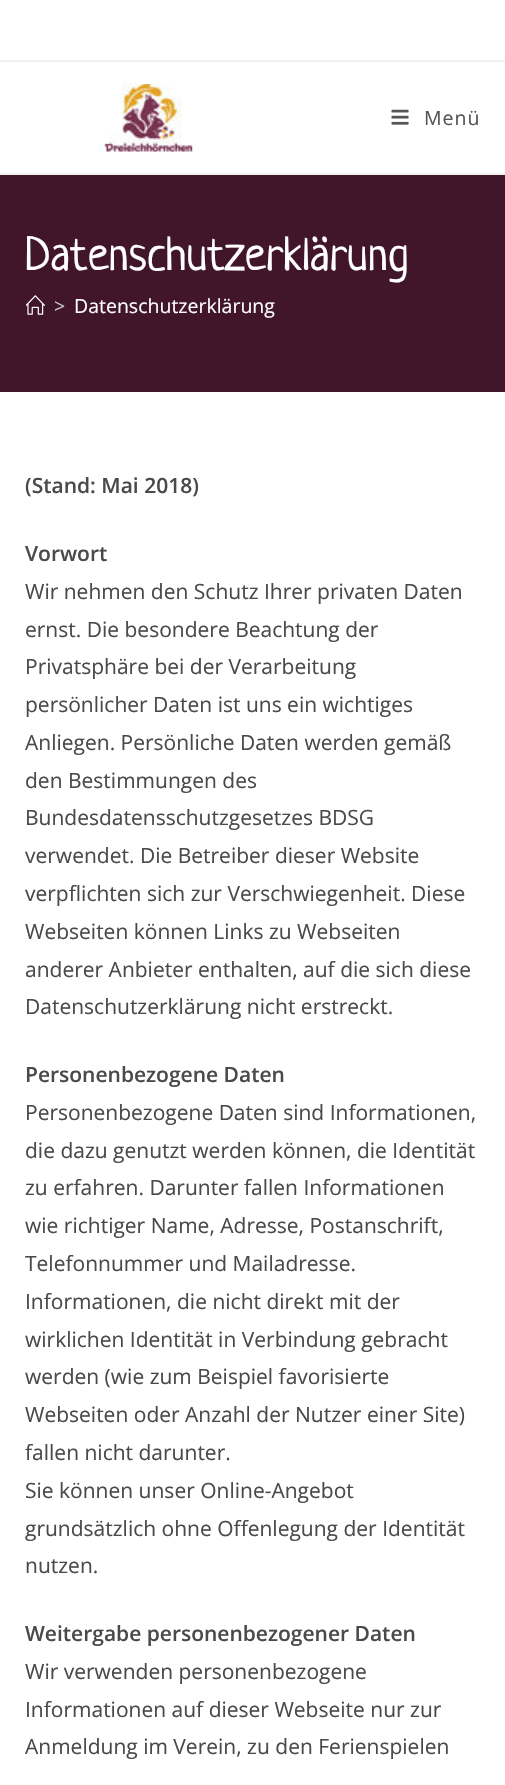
#include "include/core/SkBlurTypes.h"
#include "include/core/SkCanvas.h"
#include "include/core/SkData.h"
#include "include/core/SkFont.h"
#include "include/core/SkFontMgr.h"
#include "include/core/SkImage.h"
#include "include/core/SkMaskFilter.h"
#include "include/core/SkPaint.h"
#include "include/core/SkPathBuilder.h"
#include "include/core/SkTextBlob.h"
#include "include/effects/SkDashPathEffect.h"
#include "include/effects/SkGradientShader.h"
#include "include/utils/SkParsePath.h"

extern sk_sp<SkFontMgr> fontMgr;

void draw(SkCanvas* canvas) {
    SkPaint p;
    p.setAntiAlias(true);
    auto font = [&](const char* family, int weight, float size, bool italic = false) {
        SkFontStyle style(weight, SkFontStyle::kNormal_Width,
            italic ? SkFontStyle::kItalic_Slant : SkFontStyle::kUpright_Slant);
        SkFont result(fontMgr->matchFamilyStyle(family, style), size);
        result.setSubpixel(true);
        return result;
    };
    auto drawTracked = [&](const char* s, float x, float y, const SkFont& font, const SkPaint& ink, float letter, float word) {
        std::vector<SkGlyphID> glyphs(font.countText(s, strlen(s), SkTextEncoding::kUTF8));
        std::vector<float> xs(glyphs.size());
        font.textToGlyphs(s, strlen(s), SkTextEncoding::kUTF8, glyphs);
        font.getXPos(glyphs, xs, x);
        float extra = 0;
        for (size_t i = 0; i < glyphs.size(); i++) {
            xs[i] += extra;
            extra += letter + word * (glyphs[i] == font.unicharToGlyph(' '));
        }
        canvas->drawTextBlob(SkTextBlob::MakeFromPosHGlyphs(glyphs, xs, y, font), 0, 0, ink);
    };
    auto drawPhoto = [&](const char* path, float l, float t, float r, float b) {
        auto image = SkImages::DeferredFromEncodedData(SkData::MakeFromFileName(path));
        canvas->drawImageRect(image, SkRect::MakeLTRB(l, t, r, b), SkSamplingOptions());
    };
    canvas->clear(0xFFFFFFFF);
    p.setColor(0xFFF1F1F1);
    canvas->drawRect(SkRect::MakeLTRB(0, 60, 505, 62), p);
    canvas->drawRect(SkRect::MakeLTRB(0, 173, 505, 175), p);
    drawPhoto("media/1.png", 98, 84, 194, 152);
    drawPhoto("media/2.png", 391, 109, 409, 125);
    auto font1 = font("Open Sans", 400, 19.5f);
    p.setColor(0xFF555555);
    drawTracked("Menü", 424, 125, font1, p, 1, 0);
    p.setColor(0xFF41162A);
    canvas->drawRect(SkRect::MakeLTRB(0, 175, 505, 392), p);
    auto font2 = font("Neucha", 400, 48);
    p.setColor(0xFFFFFFFF);
    canvas->drawString("Datenschutzerklärung", 25, 270, font2, p);
    drawPhoto("media/3.png", 26, 295, 45, 315);
    p.setColor(0xFFC6C6C6);
    canvas->drawString(">", 54, 313, font1, p);
    p.setColor(0xFFFFFFFF);
    canvas->drawString("Datenschutzerklärung", 74, 313, font1, p);
    auto font3 = font("Open Sans", 600, 21);
    p.setColor(0xFF4A4A4A);
    canvas->drawString("(Stand: Mai 2018)", 25, 493, font3, p);
    canvas->drawString("Vorwort", 25, 561, font3, p);
    auto font4 = font("Open Sans", 400, 21);
    {
        const struct { const char* s; float x, y; } items[] = {
            {"Wir nehmen den Schutz Ihrer privaten Daten", 25, 599},
            {"ernst. Die besondere Beachtung der", 25, 637},
            {"Privatsphäre bei der Verarbeitung", 25, 674},
            {"persönlicher Daten ist uns ein wichtiges", 25, 712},
            {"Anliegen. Persönliche Daten werden gemäß", 25, 750},
            {"den Bestimmungen des", 25, 788},
            {"Bundesdatensschutzgesetzes BDSG", 25, 825},
            {"verwendet. Die Betreiber dieser Website", 25, 863},
            {"verpflichten sich zur Verschwiegenheit. Diese", 25, 901},
            {"Webseiten können Links zu Webseiten", 25, 939},
            {"anderer Anbieter enthalten, auf die sich diese", 25, 977},
            {"Datenschutzerklärung nicht erstreckt.", 25, 1014},
        };
        for (auto [s, x, y] : items) {
            canvas->drawString(s, x, y, font4, p);
        }
    }
    canvas->drawString("Personenbezogene Daten", 25, 1082, font3, p);
    {
        const struct { const char* s; float x, y; } items[] = {
            {"Personenbezogene Daten sind Informationen,", 25, 1120},
            {"die dazu genutzt werden können, die Identität", 25, 1158},
            {"zu erfahren. Darunter fallen Informationen", 25, 1195},
            {"wie richtiger Name, Adresse, Postanschrift,", 25, 1233},
            {"Telefonnummer und Mailadresse.", 25, 1271},
            {"Informationen, die nicht direkt mit der", 25, 1309},
            {"wirklichen Identität in Verbindung gebracht", 25, 1347},
            {"werden (wie zum Beispiel favorisierte", 25, 1384},
            {"Webseiten oder Anzahl der Nutzer einer Site)", 25, 1422},
            {"fallen nicht darunter.", 25, 1460},
            {"Sie können unser Online-Angebot", 25, 1498},
            {"grundsätzlich ohne Offenlegung der Identität", 25, 1536},
            {"nutzen.", 25, 1573},
        };
        for (auto [s, x, y] : items) {
            canvas->drawString(s, x, y, font4, p);
        }
    }
    canvas->drawString("Weitergabe personenbezogener Daten", 25, 1641, font3, p);
    {
        const struct { const char* s; float x, y; } items[] = {
            {"Wir verwenden personenbezogene", 25, 1679},
            {"Informationen auf dieser Webseite nur zur", 25, 1717},
            {"Anmeldung im Verein, zu den Ferienspielen", 25, 1754},
        };
        for (auto [s, x, y] : items) {
            canvas->drawString(s, x, y, font4, p);
        }
    }
}
